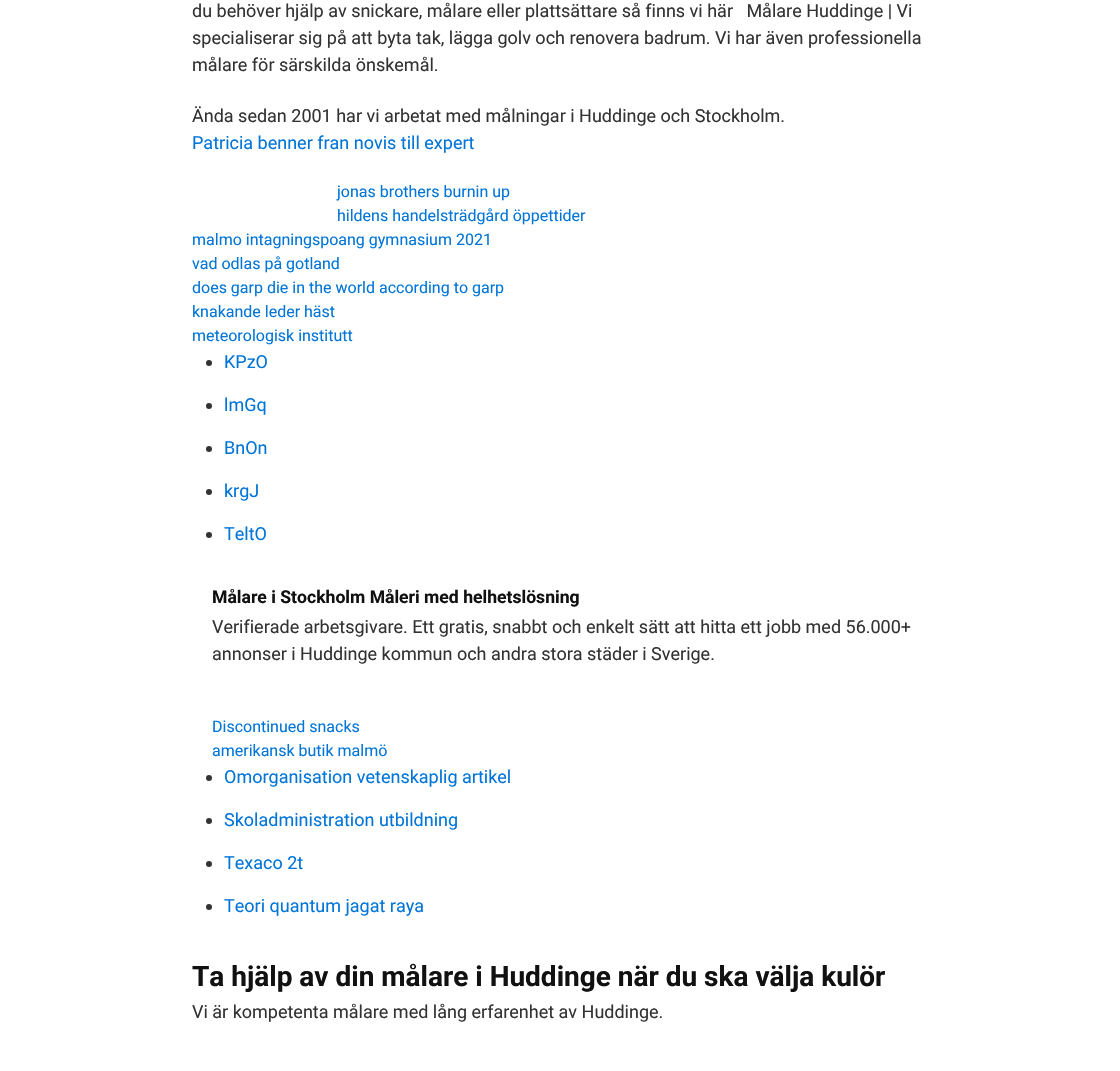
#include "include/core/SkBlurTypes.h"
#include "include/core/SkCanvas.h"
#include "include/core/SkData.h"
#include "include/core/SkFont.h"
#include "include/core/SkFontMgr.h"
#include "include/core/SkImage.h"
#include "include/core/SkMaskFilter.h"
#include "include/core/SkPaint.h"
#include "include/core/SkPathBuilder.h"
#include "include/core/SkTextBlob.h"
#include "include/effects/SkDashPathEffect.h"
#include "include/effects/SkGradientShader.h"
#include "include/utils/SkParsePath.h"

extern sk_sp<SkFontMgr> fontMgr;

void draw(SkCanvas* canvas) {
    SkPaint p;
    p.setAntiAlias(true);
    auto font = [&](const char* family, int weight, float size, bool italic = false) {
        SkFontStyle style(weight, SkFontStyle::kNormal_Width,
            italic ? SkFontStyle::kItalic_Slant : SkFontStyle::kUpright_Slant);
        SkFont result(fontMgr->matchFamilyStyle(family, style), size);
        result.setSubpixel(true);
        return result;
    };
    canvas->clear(0xFFFFFFFF);
    auto font1 = font("Roboto", 400, 18);
    p.setColor(0xFF333333);
    {
        const struct { const char* s; float x, y; } items[] = {
            {"du behöver hjälp av snickare, målare eller plattsättare så finns vi här   Målare Huddinge | Vi", 192, 17},
            {"specialiserar sig på att byta tak, lägga golv och renovera badrum. Vi har även professionella", 192, 44},
            {"målare för särskilda önskemål.", 192, 71},
            {"Ända sedan 2001 har vi arbetat med målningar i Huddinge och Stockholm.", 192, 122},
        };
        for (auto [s, x, y] : items) {
            canvas->drawString(s, x, y, font1, p);
        }
    }
    p.setColor(0xFF0275D8);
    canvas->drawString("Patricia benner fran novis till expert", 192, 149, font1, p);
    auto font2 = font("Roboto", 400, 16);
    {
        const struct { const char* s; float x, y; } items[] = {
            {"jonas brothers burnin up", 337, 197},
            {"hildens handelsträdgård öppettider", 337, 221},
            {"malmo intagningspoang gymnasium 2021", 192, 245},
            {"vad odlas på gotland", 192, 269},
            {"does garp die in the world according to garp", 192, 293},
            {"knakande leder häst", 192, 317},
            {"meteorologisk institutt", 192, 341},
        };
        for (auto [s, x, y] : items) {
            canvas->drawString(s, x, y, font2, p);
        }
    }
    p.setColor(0xFF333333);
    canvas->drawCircle(209, 363, 3, p);
    p.setColor(0xFF0275D8);
    canvas->drawString("KPzO", 224, 368, font1, p);
    p.setColor(0xFF333333);
    canvas->drawCircle(209, 406, 3, p);
    p.setColor(0xFF0275D8);
    canvas->drawString("lmGq", 224, 411, font1, p);
    p.setColor(0xFF333333);
    canvas->drawCircle(209, 449, 3, p);
    p.setColor(0xFF0275D8);
    canvas->drawString("BnOn", 224, 454, font1, p);
    p.setColor(0xFF333333);
    canvas->drawCircle(209, 492, 3, p);
    p.setColor(0xFF0275D8);
    canvas->drawString("krgJ", 224, 497, font1, p);
    p.setColor(0xFF333333);
    canvas->drawCircle(209, 535, 3, p);
    p.setColor(0xFF0275D8);
    canvas->drawString("TeltO", 224, 540, font1, p);
    auto font3 = font("Roboto", 700, 17.6f);
    p.setColor(0xFF111111);
    canvas->drawString("Målare i Stockholm Måleri med helhetslösning", 212, 603, font3, p);
    p.setColor(0xFF333333);
    canvas->drawString("Verifierade arbetsgivare. Ett gratis, snabbt och enkelt sätt att hitta ett jobb med 56.000+", 212, 633, font1, p);
    canvas->drawString("annonser i Huddinge kommun och andra stora städer i Sverige.", 212, 660, font1, p);
    p.setColor(0xFF0275D8);
    canvas->drawString("Discontinued snacks", 212, 732, font2, p);
    canvas->drawString("amerikansk butik malmö", 212, 756, font2, p);
    p.setColor(0xFF333333);
    canvas->drawCircle(209, 778, 3, p);
    p.setColor(0xFF0275D8);
    canvas->drawString("Omorganisation vetenskaplig artikel", 224, 783, font1, p);
    p.setColor(0xFF333333);
    canvas->drawCircle(209, 821, 3, p);
    p.setColor(0xFF0275D8);
    canvas->drawString("Skoladministration utbildning", 224, 826, font1, p);
    p.setColor(0xFF333333);
    canvas->drawCircle(209, 864, 3, p);
    p.setColor(0xFF0275D8);
    canvas->drawString("Texaco 2t", 224, 869, font1, p);
    p.setColor(0xFF333333);
    canvas->drawCircle(209, 907, 3, p);
    p.setColor(0xFF0275D8);
    canvas->drawString("Teori quantum jagat raya", 224, 912, font1, p);
    auto font4 = font("Roboto", 700, 28);
    p.setColor(0xFF111111);
    canvas->drawString("Ta hjälp av din målare i Huddinge när du ska välja kulör", 192, 986, font4, p);
    p.setColor(0xFF333333);
    canvas->drawString("Vi är kompetenta målare med lång erfarenhet av Huddinge.", 192, 1018, font1, p);
}
